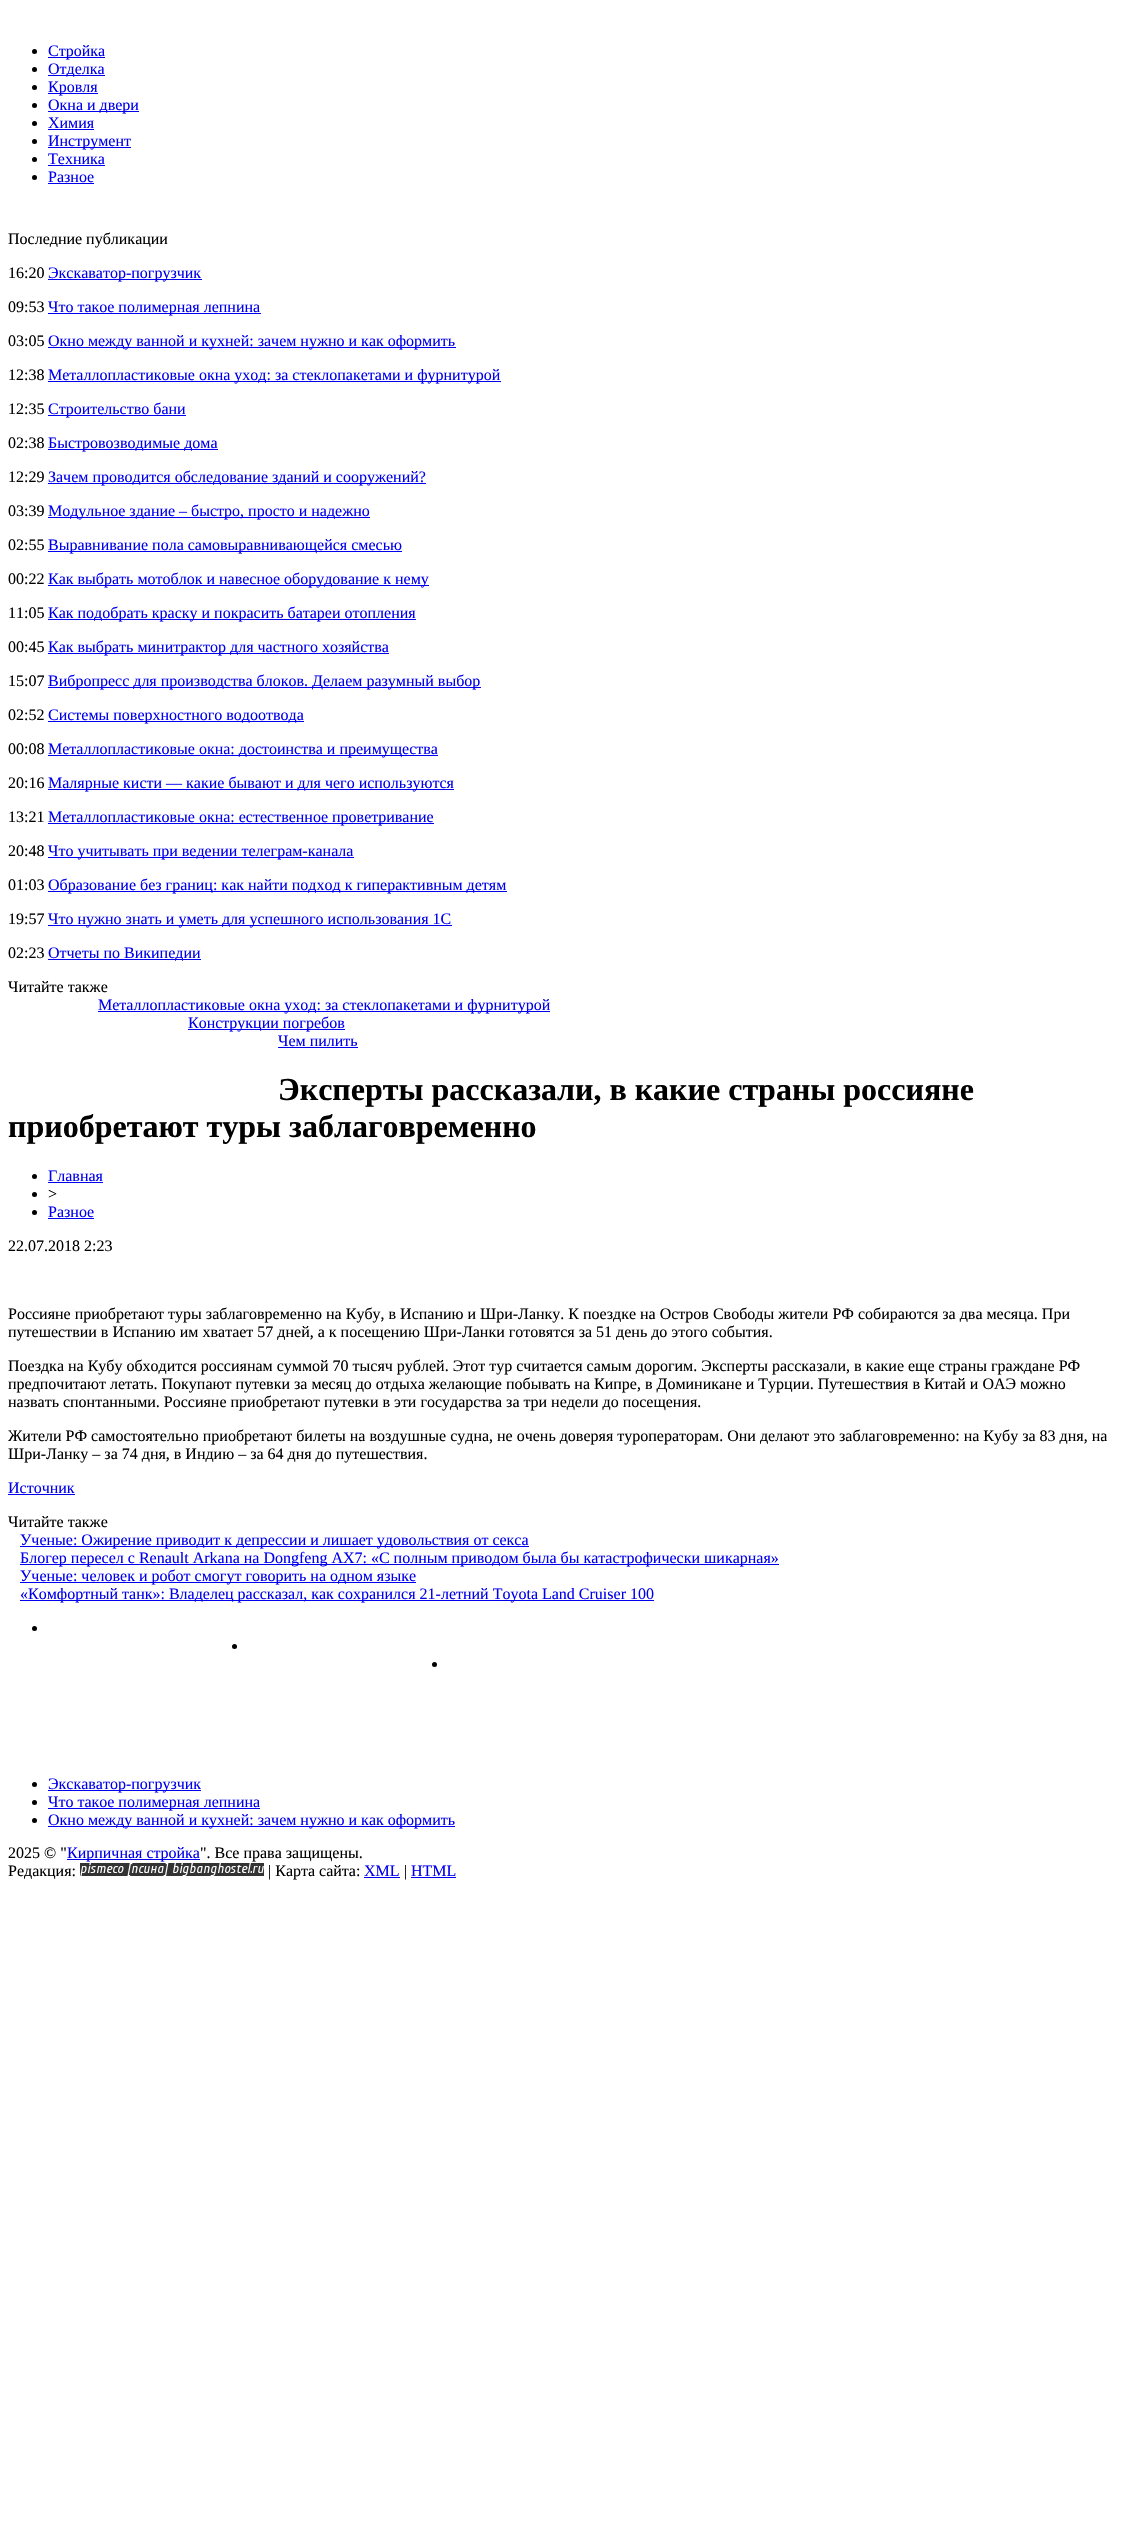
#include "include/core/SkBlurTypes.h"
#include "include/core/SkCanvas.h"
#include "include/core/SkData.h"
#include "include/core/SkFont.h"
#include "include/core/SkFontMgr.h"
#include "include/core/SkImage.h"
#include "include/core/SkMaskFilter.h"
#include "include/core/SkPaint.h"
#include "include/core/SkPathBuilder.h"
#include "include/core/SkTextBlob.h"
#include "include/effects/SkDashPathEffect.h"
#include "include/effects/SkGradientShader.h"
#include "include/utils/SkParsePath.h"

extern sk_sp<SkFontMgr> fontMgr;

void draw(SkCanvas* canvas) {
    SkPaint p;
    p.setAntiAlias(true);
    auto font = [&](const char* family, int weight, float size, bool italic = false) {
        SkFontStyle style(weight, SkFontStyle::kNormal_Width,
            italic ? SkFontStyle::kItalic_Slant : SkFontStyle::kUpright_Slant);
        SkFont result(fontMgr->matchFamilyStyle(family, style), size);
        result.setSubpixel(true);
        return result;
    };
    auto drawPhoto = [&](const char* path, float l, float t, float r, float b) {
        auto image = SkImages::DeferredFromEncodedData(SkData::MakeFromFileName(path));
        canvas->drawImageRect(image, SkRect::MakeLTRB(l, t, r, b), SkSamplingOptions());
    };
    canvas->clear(0xFFFFFFFF);
    p.setColor(0xFF000000);
    canvas->drawCircle(34.5f, 51.5f, 2.5f, p);
    p.setColor(0xFF0000EE);
    canvas->drawRect(SkRect::MakeLTRB(48, 57, 105, 58), p);
    auto font1 = font("Liberation Serif", 400, 16);
    canvas->drawString("Стройка", 48, 56, font1, p);
    p.setColor(0xFF000000);
    canvas->drawCircle(34.5f, 69.5f, 2.5f, p);
    p.setColor(0xFF0000EE);
    canvas->drawRect(SkRect::MakeLTRB(48, 75, 105, 76), p);
    canvas->drawString("Отделка", 48, 74, font1, p);
    p.setColor(0xFF000000);
    canvas->drawCircle(34.5f, 87.5f, 2.5f, p);
    p.setColor(0xFF0000EE);
    canvas->drawRect(SkRect::MakeLTRB(48, 93, 98, 94), p);
    canvas->drawString("Кровля", 48, 92, font1, p);
    p.setColor(0xFF000000);
    canvas->drawCircle(34.5f, 105.5f, 2.5f, p);
    p.setColor(0xFF0000EE);
    canvas->drawRect(SkRect::MakeLTRB(48, 111, 139, 112), p);
    canvas->drawString("Окна и двери", 48, 110, font1, p);
    p.setColor(0xFF000000);
    canvas->drawCircle(34.5f, 123.5f, 2.5f, p);
    p.setColor(0xFF0000EE);
    canvas->drawString("Химия", 48, 128, font1, p);
    canvas->drawRect(SkRect::MakeLTRB(48, 129, 94, 130), p);
    p.setColor(0xFF000000);
    canvas->drawCircle(34.5f, 141.5f, 2.5f, p);
    p.setColor(0xFF0000EE);
    canvas->drawRect(SkRect::MakeLTRB(48, 147, 131, 148), p);
    canvas->drawString("Инструмент", 48, 146, font1, p);
    p.setColor(0xFF000000);
    canvas->drawCircle(34.5f, 159.5f, 2.5f, p);
    p.setColor(0xFF0000EE);
    canvas->drawString("Техника", 48, 164, font1, p);
    canvas->drawRect(SkRect::MakeLTRB(48, 165, 105, 166), p);
    p.setColor(0xFF000000);
    canvas->drawCircle(34.5f, 177.5f, 2.5f, p);
    p.setColor(0xFF0000EE);
    canvas->drawString("Разное", 48, 182, font1, p);
    canvas->drawRect(SkRect::MakeLTRB(48, 183, 94, 184), p);
    p.setColor(0xFF000000);
    canvas->drawString("Последние публикации", 8, 244, font1, p);
    canvas->drawString("16:20", 8, 278, font1, p);
    p.setColor(0xFF0000EE);
    canvas->drawRect(SkRect::MakeLTRB(48, 279, 202, 280), p);
    canvas->drawString("Экскаватор-погрузчик", 48, 278, font1, p);
    p.setColor(0xFF000000);
    canvas->drawString("09:53", 8, 312, font1, p);
    p.setColor(0xFF0000EE);
    canvas->drawRect(SkRect::MakeLTRB(48, 313, 261, 314), p);
    canvas->drawString("Что такое полимерная лепнина", 48, 312, font1, p);
    p.setColor(0xFF000000);
    canvas->drawString("03:05", 8, 346, font1, p);
    p.setColor(0xFF0000EE);
    canvas->drawRect(SkRect::MakeLTRB(48, 347, 456, 348), p);
    canvas->drawString("Окно между ванной и кухней: зачем нужно и как оформить", 48, 346, font1, p);
    p.setColor(0xFF000000);
    canvas->drawString("12:38", 8, 380, font1, p);
    p.setColor(0xFF0000EE);
    canvas->drawRect(SkRect::MakeLTRB(48, 381, 501, 382), p);
    canvas->drawString("Металлопластиковые окна уход: за стеклопакетами и фурнитурой", 48, 380, font1, p);
    p.setColor(0xFF000000);
    canvas->drawString("12:35", 8, 414, font1, p);
    p.setColor(0xFF0000EE);
    canvas->drawRect(SkRect::MakeLTRB(48, 415, 186, 416), p);
    canvas->drawString("Строительство бани", 48, 414, font1, p);
    p.setColor(0xFF000000);
    canvas->drawString("02:38", 8, 448, font1, p);
    p.setColor(0xFF0000EE);
    canvas->drawRect(SkRect::MakeLTRB(48, 449, 218, 450), p);
    canvas->drawString("Быстровозводимые дома", 48, 448, font1, p);
    p.setColor(0xFF000000);
    canvas->drawString("12:29", 8, 482, font1, p);
    p.setColor(0xFF0000EE);
    canvas->drawRect(SkRect::MakeLTRB(48, 483, 426, 484), p);
    canvas->drawString("Зачем проводится обследование зданий и сооружений?", 48, 482, font1, p);
    p.setColor(0xFF000000);
    canvas->drawString("03:39", 8, 516, font1, p);
    p.setColor(0xFF0000EE);
    canvas->drawRect(SkRect::MakeLTRB(48, 517, 370, 518), p);
    canvas->drawString("Модульное здание – быстро, просто и надежно", 48, 516, font1, p);
    p.setColor(0xFF000000);
    canvas->drawString("02:55", 8, 550, font1, p);
    p.setColor(0xFF0000EE);
    canvas->drawRect(SkRect::MakeLTRB(48, 551, 402, 552), p);
    canvas->drawString("Выравнивание пола самовыравнивающейся смесью", 48, 550, font1, p);
    p.setColor(0xFF000000);
    canvas->drawString("00:22", 8, 584, font1, p);
    p.setColor(0xFF0000EE);
    canvas->drawRect(SkRect::MakeLTRB(48, 585, 429, 586), p);
    canvas->drawString("Как выбрать мотоблок и навесное оборудование к нему", 48, 584, font1, p);
    p.setColor(0xFF000000);
    canvas->drawString("11:05", 8, 618, font1, p);
    p.setColor(0xFF0000EE);
    canvas->drawRect(SkRect::MakeLTRB(48, 619, 416, 620), p);
    canvas->drawString("Как подобрать краску и покрасить батареи отопления", 48, 618, font1, p);
    p.setColor(0xFF000000);
    canvas->drawString("00:45", 8, 652, font1, p);
    p.setColor(0xFF0000EE);
    canvas->drawRect(SkRect::MakeLTRB(48, 653, 389, 654), p);
    canvas->drawString("Как выбрать минитрактор для частного хозяйства", 48, 652, font1, p);
    p.setColor(0xFF000000);
    canvas->drawString("15:07", 8, 686, font1, p);
    p.setColor(0xFF0000EE);
    canvas->drawRect(SkRect::MakeLTRB(48, 687, 481, 688), p);
    canvas->drawString("Вибропресс для производства блоков. Делаем разумный выбор", 48, 686, font1, p);
    p.setColor(0xFF000000);
    canvas->drawString("02:52", 8, 720, font1, p);
    p.setColor(0xFF0000EE);
    canvas->drawRect(SkRect::MakeLTRB(48, 721, 304, 722), p);
    canvas->drawString("Системы поверхностного водоотвода", 48, 720, font1, p);
    p.setColor(0xFF000000);
    canvas->drawString("00:08", 8, 754, font1, p);
    p.setColor(0xFF0000EE);
    canvas->drawRect(SkRect::MakeLTRB(48, 755, 438, 756), p);
    canvas->drawString("Металлопластиковые окна: достоинства и преимущества", 48, 754, font1, p);
    p.setColor(0xFF000000);
    canvas->drawString("20:16", 8, 788, font1, p);
    p.setColor(0xFF0000EE);
    canvas->drawRect(SkRect::MakeLTRB(48, 789, 454, 790), p);
    canvas->drawString("Малярные кисти — какие бывают и для чего используются", 48, 788, font1, p);
    p.setColor(0xFF000000);
    canvas->drawString("13:21", 8, 822, font1, p);
    p.setColor(0xFF0000EE);
    canvas->drawRect(SkRect::MakeLTRB(48, 823, 434, 824), p);
    canvas->drawString("Металлопластиковые окна: естественное проветривание", 48, 822, font1, p);
    p.setColor(0xFF000000);
    canvas->drawString("20:48", 8, 856, font1, p);
    p.setColor(0xFF0000EE);
    canvas->drawRect(SkRect::MakeLTRB(48, 857, 354, 858), p);
    canvas->drawString("Что учитывать при ведении телеграм-канала", 48, 856, font1, p);
    p.setColor(0xFF000000);
    canvas->drawString("01:03", 8, 890, font1, p);
    p.setColor(0xFF0000EE);
    canvas->drawRect(SkRect::MakeLTRB(48, 891, 507, 892), p);
    canvas->drawString("Образование без границ: как найти подход к гиперактивным детям", 48, 890, font1, p);
    p.setColor(0xFF000000);
    canvas->drawString("19:57", 8, 924, font1, p);
    p.setColor(0xFF0000EE);
    canvas->drawRect(SkRect::MakeLTRB(48, 925, 452, 926), p);
    canvas->drawString("Что нужно знать и уметь для успешного использования 1С", 48, 924, font1, p);
    p.setColor(0xFF000000);
    canvas->drawString("02:23", 8, 958, font1, p);
    p.setColor(0xFF0000EE);
    canvas->drawRect(SkRect::MakeLTRB(48, 959, 201, 960), p);
    canvas->drawString("Отчеты по Википедии", 48, 958, font1, p);
    p.setColor(0xFF000000);
    canvas->drawString("Читайте также", 8, 992, font1, p);
    p.setColor(0xFF0000EE);
    canvas->drawRect(SkRect::MakeLTRB(98, 1011, 550, 1012), p);
    canvas->drawString("Металлопластиковые окна уход: за стеклопакетами и фурнитурой", 98, 1010, font1, p);
    canvas->drawRect(SkRect::MakeLTRB(188, 1029, 345, 1030), p);
    canvas->drawString("Конструкции погребов", 188, 1028, font1, p);
    canvas->drawString("Чем пилить", 278, 1046, font1, p);
    canvas->drawRect(SkRect::MakeLTRB(278, 1047, 358, 1048), p);
    auto font2 = font("Liberation Serif", 700, 32);
    p.setColor(0xFF000000);
    canvas->drawString("Эксперты рассказали, в какие страны россияне", 278, 1100, font2, p);
    canvas->drawString("приобретают туры заблаговременно", 8, 1137, font2, p);
    canvas->drawCircle(34.5f, 1176.5f, 2.5f, p);
    p.setColor(0xFF0000EE);
    canvas->drawString("Главная", 48, 1181, font1, p);
    canvas->drawRect(SkRect::MakeLTRB(48, 1182, 103, 1183), p);
    p.setColor(0xFF000000);
    canvas->drawCircle(34.5f, 1194.5f, 2.5f, p);
    canvas->drawString(">", 48, 1199, font1, p);
    canvas->drawCircle(34.5f, 1212.5f, 2.5f, p);
    p.setColor(0xFF0000EE);
    canvas->drawString("Разное", 48, 1217, font1, p);
    canvas->drawRect(SkRect::MakeLTRB(48, 1218, 94, 1219), p);
    p.setColor(0xFF000000);
    {
        const struct { const char* s; float x, y; } items[] = {
            {"22.07.2018 2:23", 8, 1251},
            {"Россияне приобретают туры заблаговременно на Кубу, в Испанию и Шри-Ланку. К поездке на Остров Свободы жители РФ собираются за два месяца. При", 8, 1319},
            {"путешествии в Испанию им хватает 57 дней, а к посещению Шри-Ланки готовятся за 51 день до этого события.", 8, 1337},
            {"Поездка на Кубу обходится россиянам суммой 70 тысяч рублей. Этот тур считается самым дорогим. Эксперты рассказали, в какие еще страны граждане РФ", 8, 1371},
            {"предпочитают летать. Покупают путевки за месяц до отдыха желающие побывать на Кипре, в Доминикане и Турции. Путешествия в Китай и ОАЭ можно", 8, 1389},
            {"назвать спонтанными. Россияне приобретают путевки в эти государства за три недели до посещения.", 8, 1407},
            {"Жители РФ самостоятельно приобретают билеты на воздушные судна, не очень доверяя туроператорам. Они делают это заблаговременно: на Кубу за 83 дня, на", 8, 1441},
            {"Шри-Ланку – за 74 дня, в Индию – за 64 дня до путешествия.", 8, 1459},
        };
        for (auto [s, x, y] : items) {
            canvas->drawString(s, x, y, font1, p);
        }
    }
    p.setColor(0xFF0000EE);
    canvas->drawString("Источник", 8, 1493, font1, p);
    canvas->drawRect(SkRect::MakeLTRB(8, 1494, 75, 1495), p);
    p.setColor(0xFF000000);
    canvas->drawString("Читайте также", 8, 1527, font1, p);
    p.setColor(0xFF0000EE);
    canvas->drawRect(SkRect::MakeLTRB(20, 1546, 529, 1547), p);
    canvas->drawString("Ученые: Ожирение приводит к депрессии и лишает удовольствия от секса", 20, 1545, font1, p);
    canvas->drawRect(SkRect::MakeLTRB(20, 1564, 779, 1565), p);
    canvas->drawString("Блогер пересел с Renault Arkana на Dongfeng AX7: «С полным приводом была бы катастрофически шикарная»", 20, 1563, font1, p);
    canvas->drawRect(SkRect::MakeLTRB(20, 1582, 416, 1583), p);
    canvas->drawString("Ученые: человек и робот смогут говорить на одном языке", 20, 1581, font1, p);
    canvas->drawRect(SkRect::MakeLTRB(20, 1600, 654, 1601), p);
    canvas->drawString("«Комфортный танк»: Владелец рассказал, как сохранился 21-летний Toyota Land Cruiser 100", 20, 1599, font1, p);
    p.setColor(0xFF000000);
    canvas->drawCircle(34.5f, 1628.5f, 2.5f, p);
    canvas->drawCircle(234.5f, 1646.5f, 2.5f, p);
    canvas->drawCircle(434.5f, 1664.5f, 2.5f, p);
    canvas->drawCircle(34.5f, 1784.5f, 2.5f, p);
    p.setColor(0xFF0000EE);
    canvas->drawRect(SkRect::MakeLTRB(48, 1790, 201, 1791), p);
    canvas->drawString("Экскаватор-погрузчик", 48, 1789, font1, p);
    p.setColor(0xFF000000);
    canvas->drawCircle(34.5f, 1802.5f, 2.5f, p);
    p.setColor(0xFF0000EE);
    canvas->drawRect(SkRect::MakeLTRB(48, 1808, 260, 1809), p);
    canvas->drawString("Что такое полимерная лепнина", 48, 1807, font1, p);
    p.setColor(0xFF000000);
    canvas->drawCircle(34.5f, 1820.5f, 2.5f, p);
    p.setColor(0xFF0000EE);
    canvas->drawRect(SkRect::MakeLTRB(48, 1826, 455, 1827), p);
    canvas->drawString("Окно между ванной и кухней: зачем нужно и как оформить", 48, 1825, font1, p);
    p.setColor(0xFF000000);
    canvas->drawString("2025 © \"", 8, 1858, font1, p);
    p.setColor(0xFF0000EE);
    canvas->drawRect(SkRect::MakeLTRB(67, 1859, 200, 1860), p);
    canvas->drawString("Кирпичная стройка", 67, 1858, font1, p);
    p.setColor(0xFF000000);
    canvas->drawString("\". Все права защищены.", 200, 1858, font1, p);
    canvas->drawString("Редакция:", 8, 1876, font1, p);
    drawPhoto("media/1.png", 80, 1863, 264, 1876);
    canvas->drawString("| Карта сайта:", 268, 1876, font1, p);
    p.setColor(0xFF0000EE);
    canvas->drawString("XML", 364, 1876, font1, p);
    canvas->drawRect(SkRect::MakeLTRB(364, 1877, 400, 1878), p);
    p.setColor(0xFF000000);
    canvas->drawString("|", 404, 1876, font1, p);
    p.setColor(0xFF0000EE);
    canvas->drawString("HTML", 411, 1876, font1, p);
    canvas->drawRect(SkRect::MakeLTRB(411, 1877, 456, 1878), p);
}
